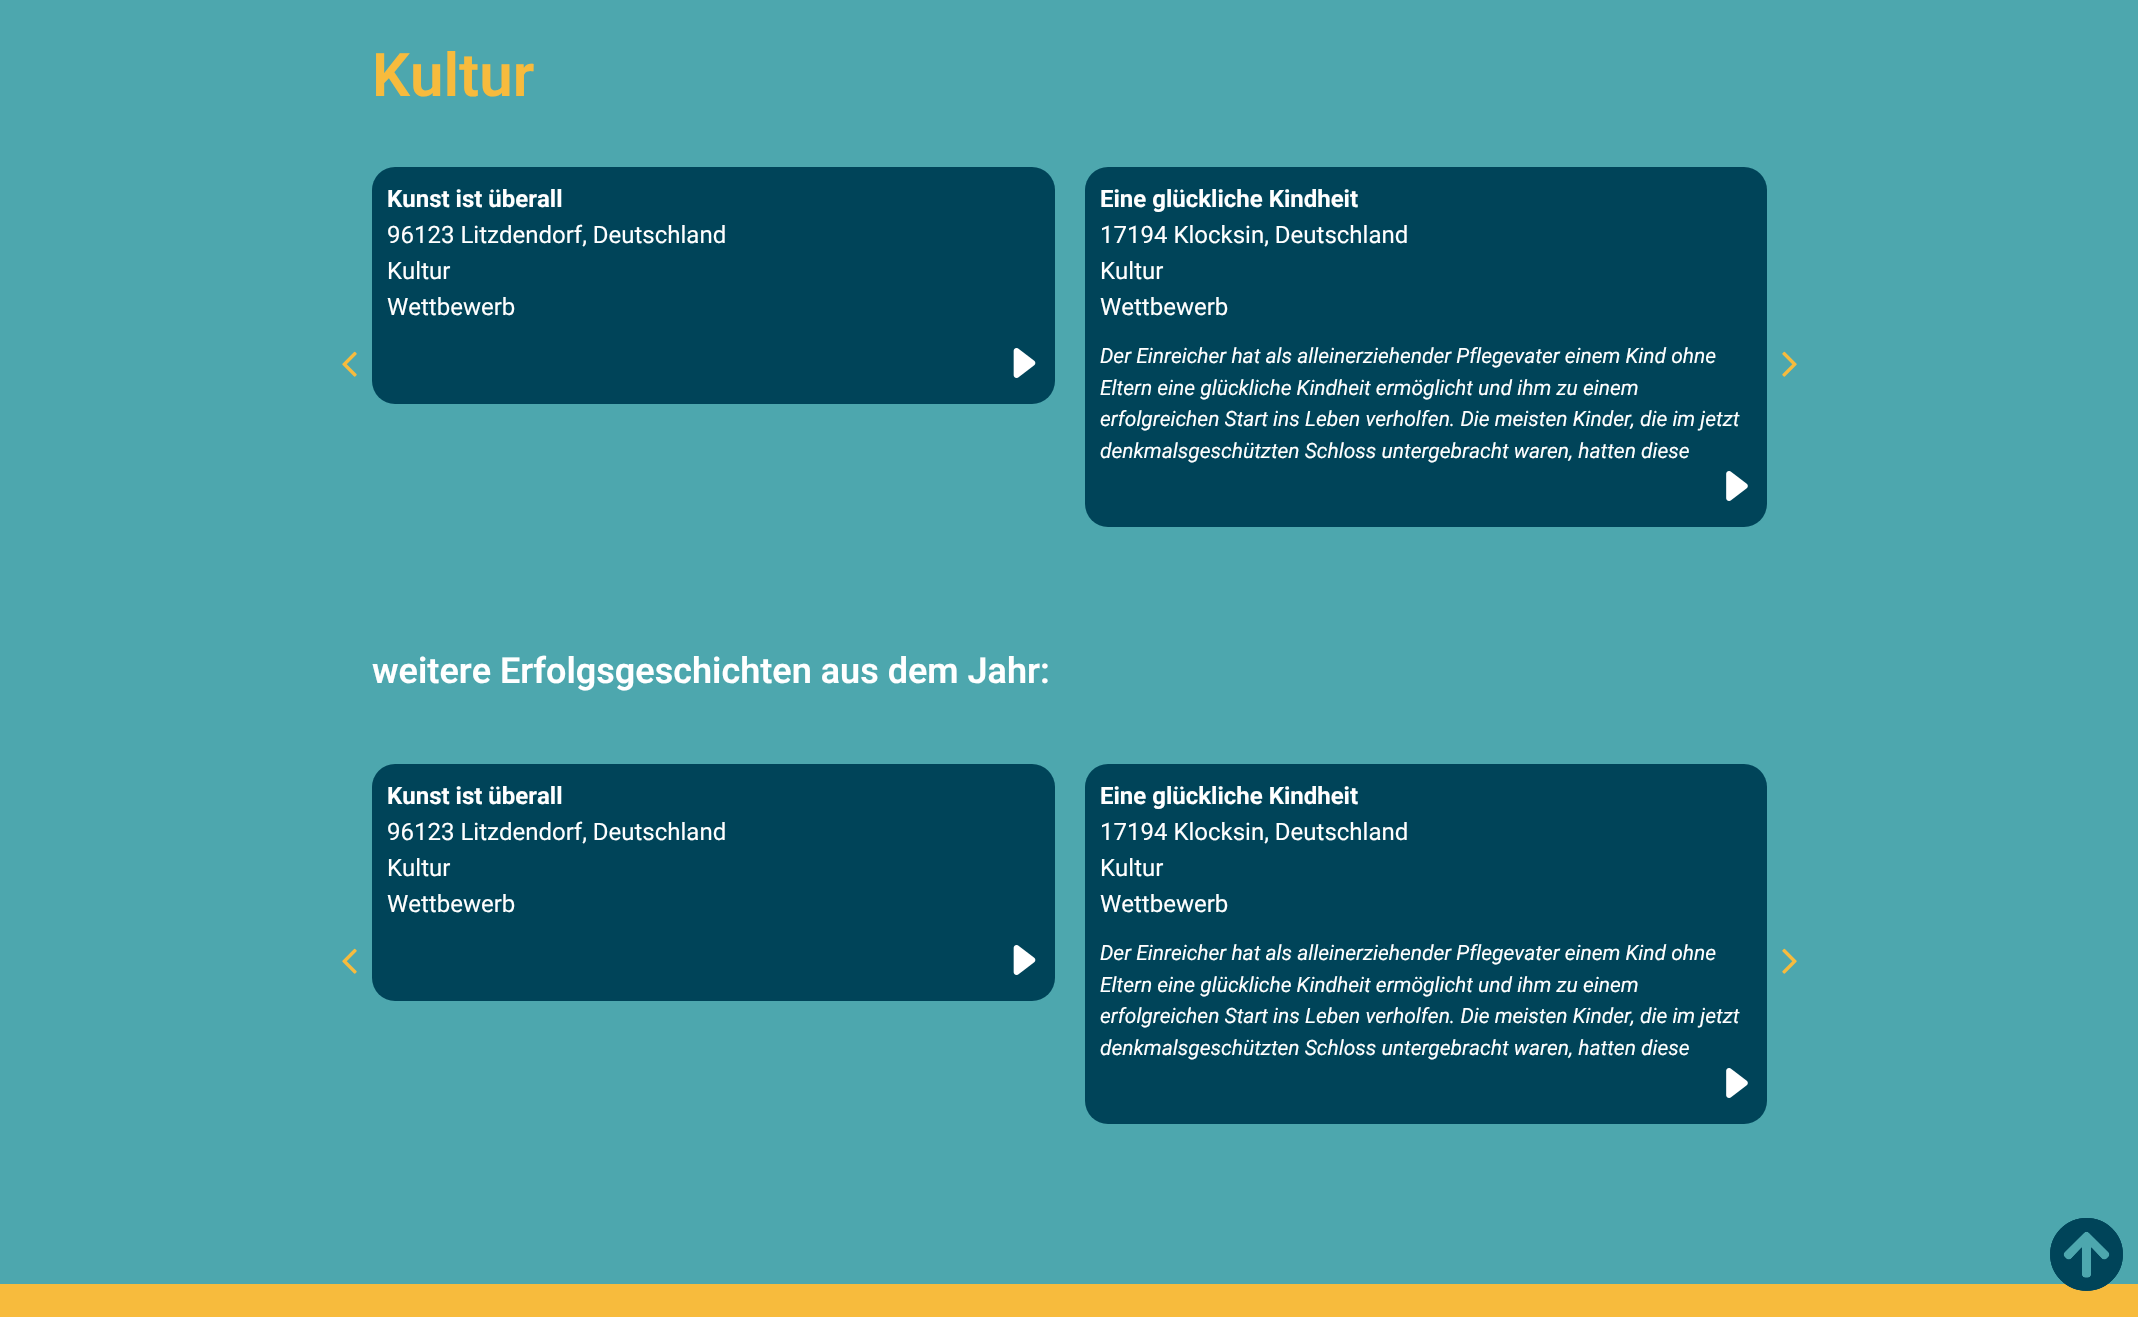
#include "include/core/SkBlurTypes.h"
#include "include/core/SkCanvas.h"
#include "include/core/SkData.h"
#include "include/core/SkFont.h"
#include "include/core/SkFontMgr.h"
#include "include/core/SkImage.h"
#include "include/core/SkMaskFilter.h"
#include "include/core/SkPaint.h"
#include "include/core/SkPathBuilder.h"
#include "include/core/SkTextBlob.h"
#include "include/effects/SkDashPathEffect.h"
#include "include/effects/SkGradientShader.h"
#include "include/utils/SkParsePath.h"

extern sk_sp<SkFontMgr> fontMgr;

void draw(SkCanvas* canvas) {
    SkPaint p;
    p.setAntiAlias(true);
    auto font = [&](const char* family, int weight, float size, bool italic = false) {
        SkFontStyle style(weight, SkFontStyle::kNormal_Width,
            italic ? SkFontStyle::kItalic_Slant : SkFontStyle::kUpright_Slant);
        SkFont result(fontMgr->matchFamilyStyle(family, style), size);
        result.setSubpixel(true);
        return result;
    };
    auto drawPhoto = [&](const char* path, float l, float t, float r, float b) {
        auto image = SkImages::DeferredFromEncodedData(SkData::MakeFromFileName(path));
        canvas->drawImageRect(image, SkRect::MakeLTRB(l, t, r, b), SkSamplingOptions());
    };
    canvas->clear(0xFF4DA7AE);
    auto font1 = font("Roboto", 600, 60);
    p.setColor(0xFFF7BB3D);
    canvas->drawString("Kultur", 372, 96, font1, p);
    drawPhoto("media/1.png", 342, 351, 357, 377);
    p.setColor(0xFF004459);
    canvas->drawRoundRect(SkRect::MakeLTRB(372, 167, 1055, 404), 23, 23, p);
    auto font2 = font("Roboto", 700, 24);
    p.setColor(0xFFFFFFFF);
    canvas->drawString("Kunst ist überall", 387, 207, font2, p);
    auto font3 = font("Roboto", 400, 24);
    {
        const struct { const char* s; float x, y; } items[] = {
            {"96123 Litzdendorf, Deutschland", 387, 243},
            {"Kultur", 387, 279},
            {"Wettbewerb", 387, 315},
        };
        for (auto [s, x, y] : items) {
            canvas->drawString(s, x, y, font3, p);
        }
    }
    drawPhoto("media/2.png", 1013, 348, 1036, 378);
    p.setColor(0xFF004459);
    canvas->drawRoundRect(SkRect::MakeLTRB(1085, 167, 1767, 527), 23, 23, p);
    p.setColor(0xFFFFFFFF);
    canvas->drawString("Eine glückliche Kindheit", 1100, 207, font2, p);
    {
        const struct { const char* s; float x, y; } items[] = {
            {"17194 Klocksin, Deutschland", 1100, 243},
            {"Kultur", 1100, 279},
            {"Wettbewerb", 1100, 315},
        };
        for (auto [s, x, y] : items) {
            canvas->drawString(s, x, y, font3, p);
        }
    }
    auto font4 = font("Roboto", 400, 21, true);
    {
        const struct { const char* s; float x, y; } items[] = {
            {"Der Einreicher hat als alleinerziehender Pflegevater einem Kind ohne", 1100, 363},
            {"Eltern eine glückliche Kindheit ermöglicht und ihm zu einem", 1100, 395},
            {"erfolgreichen Start ins Leben verholfen. Die meisten Kinder, die im jetzt", 1100, 426},
            {"denkmalsgeschützten Schloss untergebracht waren, hatten diese", 1100, 458},
        };
        for (auto [s, x, y] : items) {
            canvas->drawString(s, x, y, font4, p);
        }
    }
    drawPhoto("media/3.png", 1726, 471, 1748, 501);
    drawPhoto("media/4.png", 1782, 351, 1797, 377);
    p.setColor(0xFFF7BB3D);
    canvas->drawRect(SkRect::MakeLTRB(0, 1284, 2138, 1317), p);
    drawPhoto("media/7.png", 2050, 1218, 2123, 1291);
    drawPhoto("media/5.png", 2050, 1218, 2123, 1291);
    auto font5 = font("Roboto", 600, 36);
    p.setColor(0xFFFFFFFF);
    canvas->drawString("weitere Erfolgsgeschichten aus dem Jahr:", 372, 683, font5, p);
    drawPhoto("media/1.png", 342, 948, 357, 974);
    p.setColor(0xFF004459);
    canvas->drawRoundRect(SkRect::MakeLTRB(372, 764, 1055, 1001), 23, 23, p);
    p.setColor(0xFFFFFFFF);
    canvas->drawString("Kunst ist überall", 387, 804, font2, p);
    {
        const struct { const char* s; float x, y; } items[] = {
            {"96123 Litzdendorf, Deutschland", 387, 840},
            {"Kultur", 387, 876},
            {"Wettbewerb", 387, 912},
        };
        for (auto [s, x, y] : items) {
            canvas->drawString(s, x, y, font3, p);
        }
    }
    drawPhoto("media/2.png", 1013, 945, 1036, 975);
    p.setColor(0xFF004459);
    canvas->drawRoundRect(SkRect::MakeLTRB(1085, 764, 1767, 1124), 23, 23, p);
    p.setColor(0xFFFFFFFF);
    canvas->drawString("Eine glückliche Kindheit", 1100, 804, font2, p);
    {
        const struct { const char* s; float x, y; } items[] = {
            {"17194 Klocksin, Deutschland", 1100, 840},
            {"Kultur", 1100, 876},
            {"Wettbewerb", 1100, 912},
        };
        for (auto [s, x, y] : items) {
            canvas->drawString(s, x, y, font3, p);
        }
    }
    {
        const struct { const char* s; float x, y; } items[] = {
            {"Der Einreicher hat als alleinerziehender Pflegevater einem Kind ohne", 1100, 960},
            {"Eltern eine glückliche Kindheit ermöglicht und ihm zu einem", 1100, 992},
            {"erfolgreichen Start ins Leben verholfen. Die meisten Kinder, die im jetzt", 1100, 1023},
            {"denkmalsgeschützten Schloss untergebracht waren, hatten diese", 1100, 1055},
        };
        for (auto [s, x, y] : items) {
            canvas->drawString(s, x, y, font4, p);
        }
    }
    drawPhoto("media/3.png", 1726, 1068, 1748, 1098);
    drawPhoto("media/4.png", 1782, 948, 1797, 974);
    drawPhoto("media/6.png", 2050, 1218, 2123, 1291);
}
